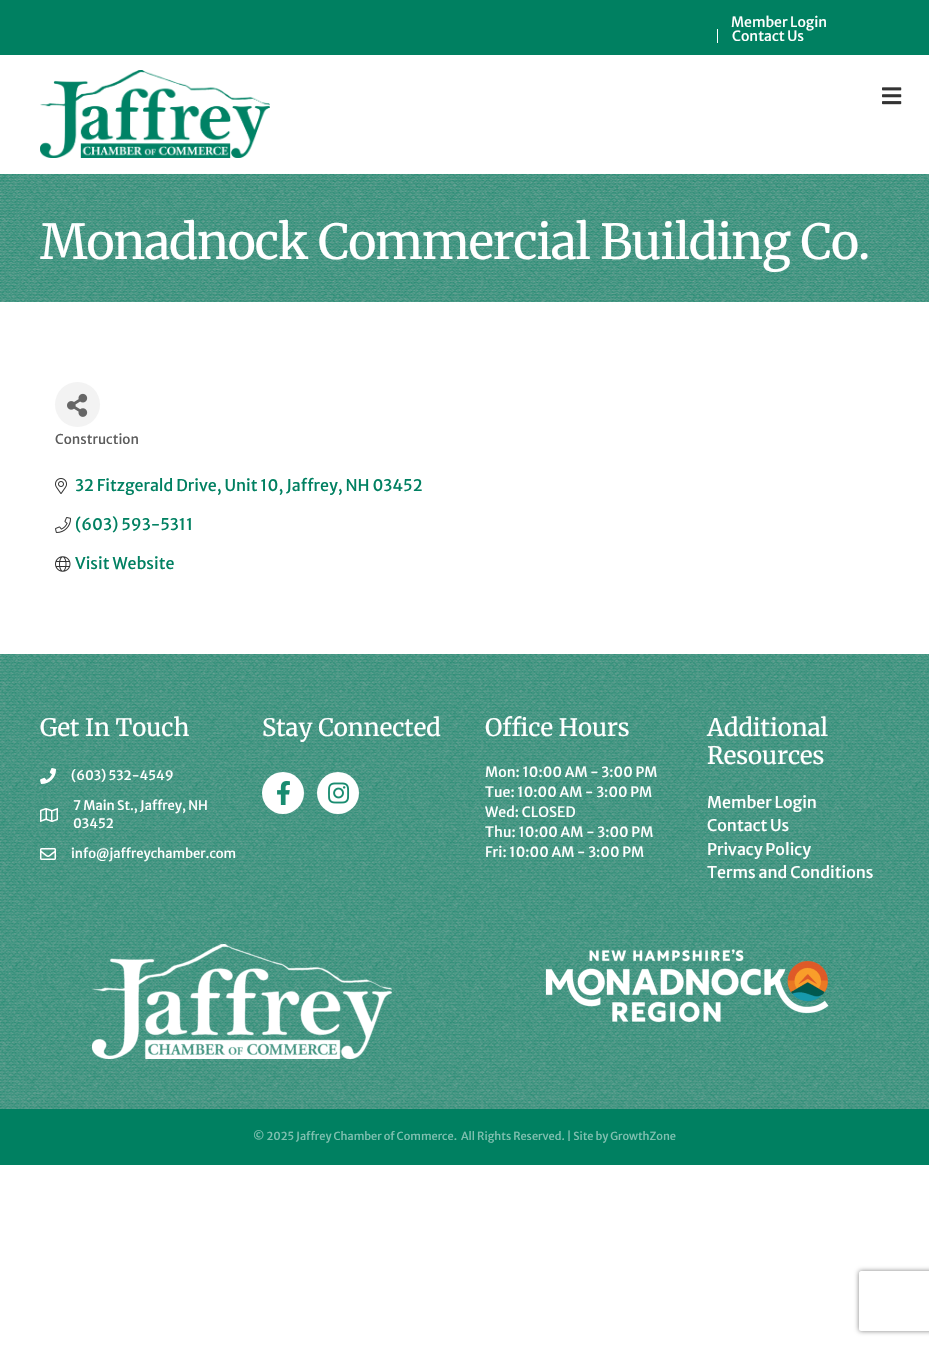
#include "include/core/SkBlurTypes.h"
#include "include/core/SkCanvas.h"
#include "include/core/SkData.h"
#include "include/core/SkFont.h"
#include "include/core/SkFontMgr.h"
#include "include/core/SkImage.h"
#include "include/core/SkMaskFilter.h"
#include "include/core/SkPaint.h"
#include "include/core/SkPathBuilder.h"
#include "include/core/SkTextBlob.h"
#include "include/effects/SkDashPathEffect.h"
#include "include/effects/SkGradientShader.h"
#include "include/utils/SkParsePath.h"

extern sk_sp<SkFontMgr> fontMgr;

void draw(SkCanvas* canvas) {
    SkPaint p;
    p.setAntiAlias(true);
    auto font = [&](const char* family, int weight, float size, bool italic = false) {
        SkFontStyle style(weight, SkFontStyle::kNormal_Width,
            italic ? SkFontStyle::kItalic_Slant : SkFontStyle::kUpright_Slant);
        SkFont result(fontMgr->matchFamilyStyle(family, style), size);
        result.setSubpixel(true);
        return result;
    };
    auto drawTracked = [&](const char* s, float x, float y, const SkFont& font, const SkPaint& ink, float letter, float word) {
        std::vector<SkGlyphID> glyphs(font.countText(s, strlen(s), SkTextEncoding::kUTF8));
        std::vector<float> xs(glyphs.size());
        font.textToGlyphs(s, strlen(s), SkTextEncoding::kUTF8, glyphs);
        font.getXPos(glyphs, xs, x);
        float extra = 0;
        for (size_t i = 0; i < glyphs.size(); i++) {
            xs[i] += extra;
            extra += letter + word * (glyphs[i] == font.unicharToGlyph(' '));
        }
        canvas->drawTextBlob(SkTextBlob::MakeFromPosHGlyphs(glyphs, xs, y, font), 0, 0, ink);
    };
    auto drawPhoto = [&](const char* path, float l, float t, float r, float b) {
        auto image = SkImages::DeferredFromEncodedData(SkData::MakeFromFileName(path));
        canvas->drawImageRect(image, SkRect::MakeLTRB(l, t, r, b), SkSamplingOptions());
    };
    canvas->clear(0xFFFFFFFF);
    p.setColor(0xFF008061);
    canvas->drawRect(SkRect::MakeLTRB(0, 0, 929, 55), p);
    auto font1 = font("Merriweather Sans", 400, 14);
    p.setColor(0xFFFFFFFF);
    canvas->drawString("Member Login", 731, 27, font1, p);
    canvas->drawRect(SkRect::MakeLTRB(717, 29, 718, 43), p);
    canvas->drawString("Contact Us", 732, 41, font1, p);
    drawPhoto("media/1.png", 40, 70, 270, 158);
    drawPhoto("media/2.png", 882, 87, 902, 105);
    p.setColor(0xFF008061);
    canvas->drawRect(SkRect::MakeLTRB(0, 174, 929, 302), p);
    drawPhoto("media/3.png", 0, 174, 929, 302);
    auto font2 = font("Merriweather", 300, 48);
    p.setColor(0xFFFFFFFF);
    drawTracked("Monadnock Commercial Building Co.", 40, 259, font2, p, -1, 0);
    p.setColor(0xFFF3F3F3);
    canvas->drawCircle(77.5f, 404.5f, 22.5f, p);
    drawPhoto("media/4.png", 67, 393, 88, 417);
    auto font3 = font("Merriweather Sans", 400, 13.5f);
    p.setColor(0xFF5C5C5C);
    canvas->drawString("Construction", 55, 444, font3, p);
    drawPhoto("media/5.png", 55, 478, 67, 494);
    auto font4 = font("Merriweather Sans", 400, 16);
    p.setColor(0xFF008061);
    canvas->drawString("32 Fitzgerald Drive, Unit 10, Jaffrey, NH 03452", 75, 491, font4, p);
    drawPhoto("media/6.png", 55, 517, 71, 533);
    canvas->drawString("(603) 593-5311", 75, 530, font4, p);
    drawPhoto("media/7.png", 55, 556, 71, 572);
    canvas->drawString("Visit Website", 75, 569, font4, p);
    canvas->drawRect(SkRect::MakeLTRB(0, 654, 929, 1165), p);
    drawPhoto("media/8.png", 0, 654, 929, 1109);
    auto font5 = font("Merriweather", 300, 24);
    p.setColor(0xFFFFFFFF);
    canvas->drawString("Get In Touch", 40, 736, font5, p);
    drawPhoto("media/9.png", 40, 768, 56, 784);
    auto font6 = font("Merriweather Sans", 400, 13);
    canvas->drawString("(603) 532-4549", 71, 780, font6, p);
    drawPhoto("media/10.png", 40, 808, 58, 822);
    canvas->drawString("7 Main St., Jaffrey, NH", 73, 810, font6, p);
    canvas->drawString("03452", 73, 828, font6, p);
    drawPhoto("media/11.png", 40, 848, 56, 860);
    canvas->drawString("info@jaffreychamber.com", 71, 858, font6, p);
    canvas->drawString("Stay Connected", 262, 736, font5, p);
    canvas->drawCircle(283, 793, 21, p);
    drawPhoto("media/12.png", 277, 781, 290, 805);
    canvas->drawCircle(338, 793, 21, p);
    drawPhoto("media/13.png", 328, 782, 350, 804);
    canvas->drawString("Office Hours", 485, 736, font5, p);
    {
        const struct { const char* s; float x, y; } items[] = {
            {"Mon: 10:00 AM - 3:00 PM", 485, 777},
            {"Tue: 10:00 AM - 3:00 PM", 485, 797},
            {"Wed: CLOSED", 485, 817},
            {"Thu: 10:00 AM - 3:00 PM", 485, 837},
            {"Fri: 10:00 AM - 3:00 PM", 485, 857},
        };
        for (auto [s, x, y] : items) {
            drawTracked(s, x, y, font1, p, 0.1f, 0);
        }
    }
    canvas->drawString("Additional", 707, 736, font5, p);
    canvas->drawString("Resources", 707, 764, font5, p);
    {
        const struct { const char* s; float x, y; } items[] = {
            {"Member Login", 707, 808},
            {"Contact Us", 707, 831},
            {"Privacy Policy", 707, 855},
            {"Terms and Conditions", 707, 878},
        };
        for (auto [s, x, y] : items) {
            canvas->drawString(s, x, y, font4, p);
        }
    }
    drawPhoto("media/14.png", 92, 944, 392, 1059);
    drawPhoto("media/15.png", 545, 949, 829, 1023);
    auto font7 = font("Merriweather Sans", 400, 11);
    p.setColor(0xFF80C0B0);
    canvas->drawString("© 2025 Jaffrey Chamber of Commerce.", 253, 1140, font7, p);
    canvas->drawString("All Rights Reserved. | Site by GrowthZone", 461, 1140, font7, p);
    canvas->save();
    canvas->clipPath(SkPathBuilder(SkPathFillType::kEvenOdd).moveTo(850, 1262).lineTo(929, 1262).lineTo(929, 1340).lineTo(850, 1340).close().moveTo(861, 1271).lineTo(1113, 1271).cubicTo(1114, 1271, 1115, 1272, 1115, 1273).lineTo(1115, 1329).cubicTo(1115, 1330, 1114, 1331, 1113, 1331).lineTo(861, 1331).cubicTo(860, 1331, 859, 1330, 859, 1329).lineTo(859, 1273).cubicTo(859, 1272, 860, 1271, 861, 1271).close().detach(), true);
    p.setColor(0xFF808080);
    p.setMaskFilter(SkMaskFilter::MakeBlur(kNormal_SkBlurStyle, 2.5f));
    canvas->drawRoundRect(SkRect::MakeLTRB(859, 1271, 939, 1331), 2, 2, p);
    p.setMaskFilter(nullptr);
    canvas->restore();
}
